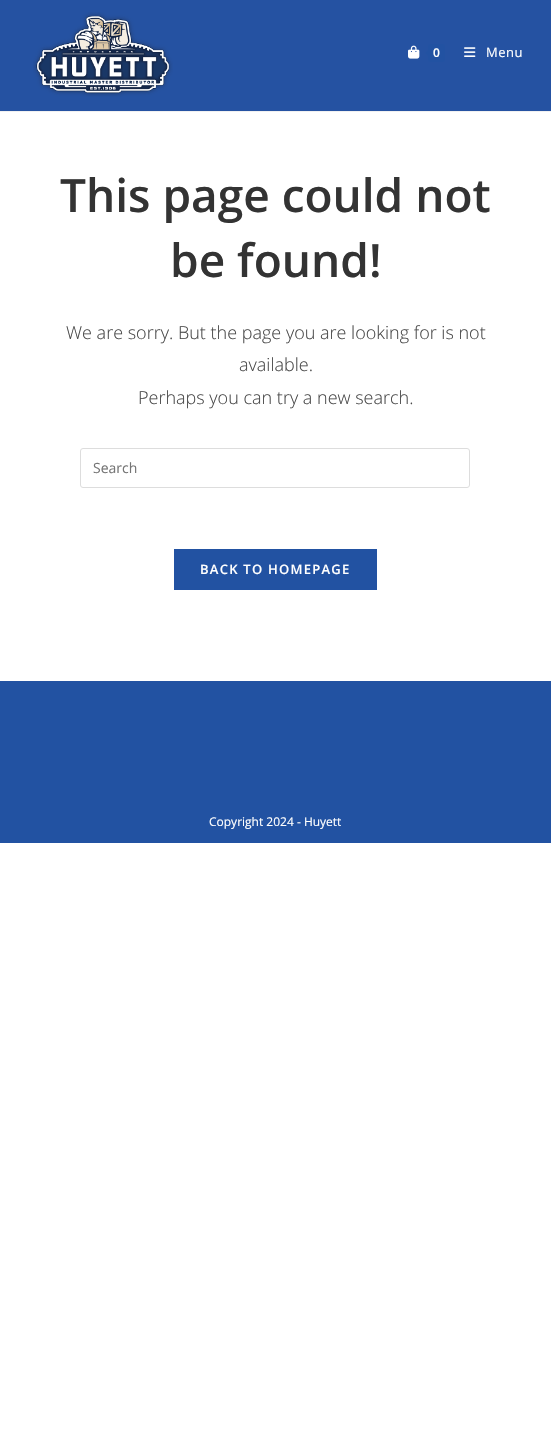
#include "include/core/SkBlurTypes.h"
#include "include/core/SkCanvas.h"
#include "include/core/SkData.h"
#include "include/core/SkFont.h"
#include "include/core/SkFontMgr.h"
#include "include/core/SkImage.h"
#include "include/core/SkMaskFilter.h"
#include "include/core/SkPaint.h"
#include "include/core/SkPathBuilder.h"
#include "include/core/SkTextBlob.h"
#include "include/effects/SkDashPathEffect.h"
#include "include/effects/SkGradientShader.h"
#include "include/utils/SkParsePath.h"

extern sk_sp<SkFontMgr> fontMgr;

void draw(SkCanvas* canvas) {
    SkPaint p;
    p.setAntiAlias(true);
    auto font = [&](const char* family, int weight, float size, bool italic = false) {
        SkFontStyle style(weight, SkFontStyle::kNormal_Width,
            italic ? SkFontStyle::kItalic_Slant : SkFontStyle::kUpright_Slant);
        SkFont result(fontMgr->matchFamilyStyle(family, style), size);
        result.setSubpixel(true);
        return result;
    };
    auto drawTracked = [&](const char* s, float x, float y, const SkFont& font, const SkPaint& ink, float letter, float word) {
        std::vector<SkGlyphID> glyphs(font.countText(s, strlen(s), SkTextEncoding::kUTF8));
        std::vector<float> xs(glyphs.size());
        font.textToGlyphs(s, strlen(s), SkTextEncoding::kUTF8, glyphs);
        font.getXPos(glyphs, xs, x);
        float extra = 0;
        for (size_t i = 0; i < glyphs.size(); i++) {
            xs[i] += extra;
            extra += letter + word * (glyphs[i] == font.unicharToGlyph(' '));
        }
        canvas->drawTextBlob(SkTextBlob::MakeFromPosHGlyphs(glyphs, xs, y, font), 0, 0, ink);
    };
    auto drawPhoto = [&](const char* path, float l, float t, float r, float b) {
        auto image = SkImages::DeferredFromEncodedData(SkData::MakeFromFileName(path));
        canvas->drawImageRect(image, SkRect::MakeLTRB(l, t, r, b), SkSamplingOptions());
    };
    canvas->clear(0xFFFFFFFF);
    p.setColor(0xFF2552A2);
    canvas->drawRect(SkRect::MakeLTRB(0, 0, 551, 111), p);
    p.setColor(0xFFF1F1F1);
    canvas->drawRect(SkRect::MakeLTRB(0, 111, 551, 112), p);
    drawPhoto("media/1.png", 33, 12, 173, 97);
    drawPhoto("media/2.png", 408, 45, 420, 59);
    p.setColor(0xFF2252A2);
    canvas->drawRoundRect(SkRect::MakeLTRB(428, 44, 445, 62), 2, 2, p);
    canvas->drawPath(SkPathBuilder().moveTo(430, 48).lineTo(430, 58).lineTo(425, 53).close().detach(), p);
    auto font1 = font("Open Sans", 600, 12);
    p.setColor(0xFFFFFFFF);
    drawTracked("0", 433, 57, font1, p, 0.5f, 0);
    drawPhoto("media/3.png", 464, 47, 476, 57);
    auto font2 = font("Open Sans", 400, 13);
    drawTracked("Menu", 486, 57, font2, p, 0.5f, 0);
    auto font3 = font("Open Sans", 600, 46);
    p.setColor(0xFF333333);
    canvas->drawString("This page could not", 60, 212, font3, p);
    canvas->drawString("be found!", 170, 277, font3, p);
    auto font4 = font("Open Sans", 300, 18);
    p.setColor(0xFF4A4A4A);
    {
        const struct { const char* s; float x, y; } items[] = {
            {"We are sorry. But the page you are looking for is not", 66, 339},
            {"available.", 239, 371},
            {"Perhaps you can try a new search.", 138, 404},
        };
        for (auto [s, x, y] : items) {
            canvas->drawString(s, x, y, font4, p);
        }
    }
    p.setStyle(SkPaint::kStroke_Style);
    p.setStrokeWidth(1);
    p.setColor(0xFFDDDDDD);
    canvas->drawRoundRect(SkRect::MakeLTRB(80.5f, 448.5f, 469.5f, 487.5f), 2.5f, 2.5f, p);
    auto font5 = font("Open Sans", 400, 14);
    p.setStyle(SkPaint::kFill_Style);
    p.setColor(0xFF757575);
    canvas->drawString("Search", 93, 473, font5, p);
    p.setColor(0xFF2252A2);
    canvas->drawRect(SkRect::MakeLTRB(174, 549, 377, 590), p);
    auto font6 = font("Open Sans", 600, 13);
    p.setColor(0xFFFFFFFF);
    drawTracked("BACK TO HOMEPAGE", 200, 574, font6, p, 1.25f, 0);
    p.setColor(0xFF2252A2);
    canvas->drawRect(SkRect::MakeLTRB(0, 681, 551, 843), p);
    auto font7 = font("Open Sans", 400, 12);
    p.setColor(0xFFFFFFFF);
    canvas->drawString("Copyright 2024 - Huyett", 209, 826, font7, p);
}
